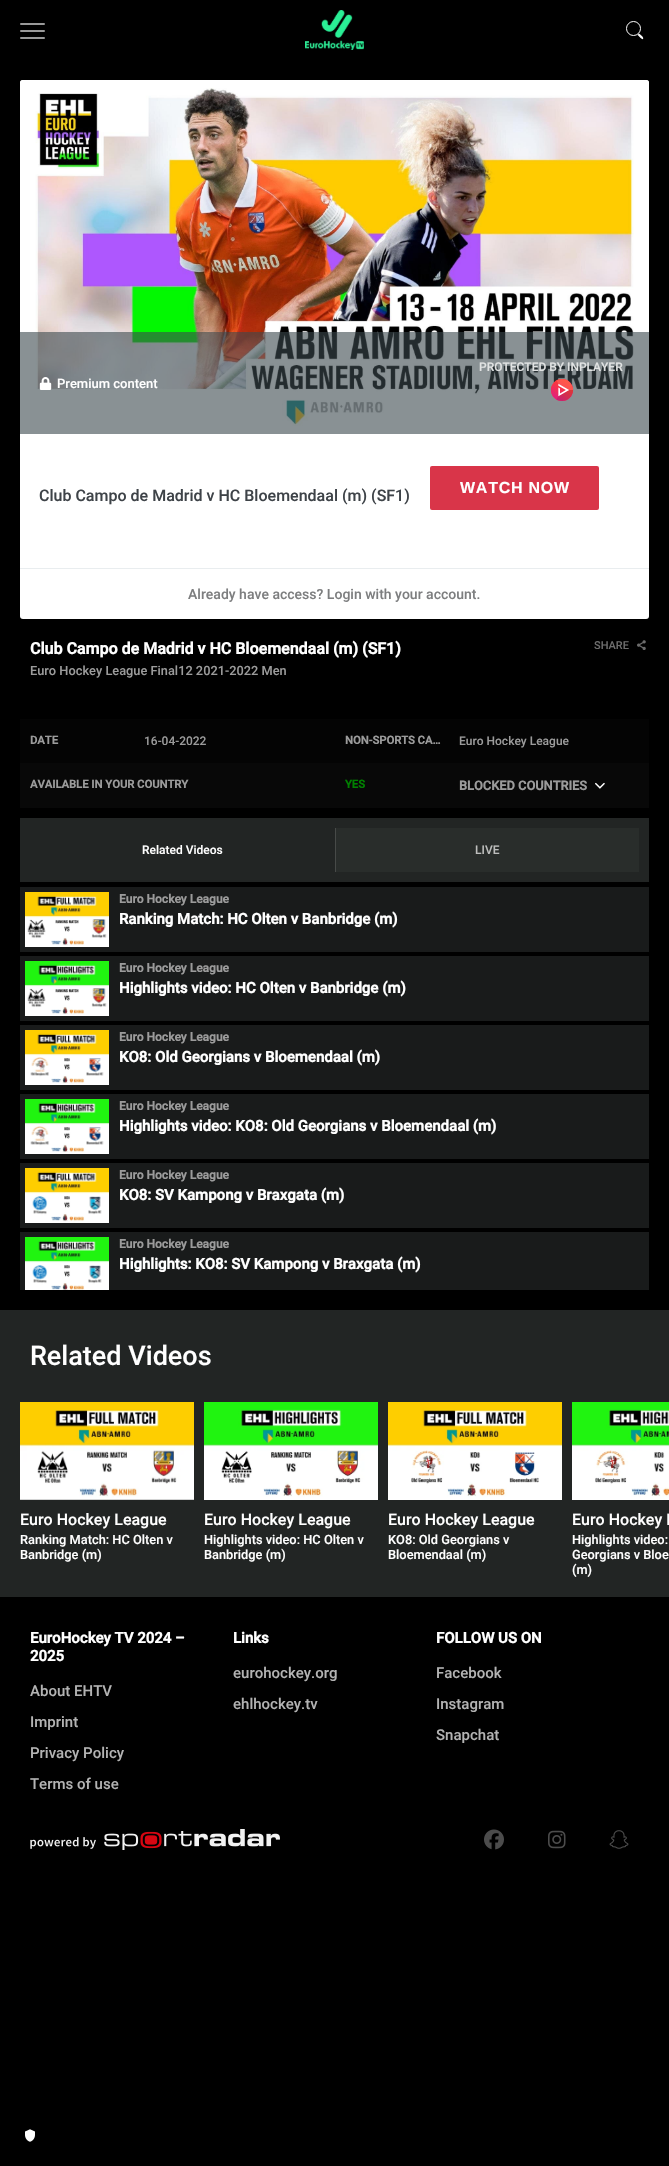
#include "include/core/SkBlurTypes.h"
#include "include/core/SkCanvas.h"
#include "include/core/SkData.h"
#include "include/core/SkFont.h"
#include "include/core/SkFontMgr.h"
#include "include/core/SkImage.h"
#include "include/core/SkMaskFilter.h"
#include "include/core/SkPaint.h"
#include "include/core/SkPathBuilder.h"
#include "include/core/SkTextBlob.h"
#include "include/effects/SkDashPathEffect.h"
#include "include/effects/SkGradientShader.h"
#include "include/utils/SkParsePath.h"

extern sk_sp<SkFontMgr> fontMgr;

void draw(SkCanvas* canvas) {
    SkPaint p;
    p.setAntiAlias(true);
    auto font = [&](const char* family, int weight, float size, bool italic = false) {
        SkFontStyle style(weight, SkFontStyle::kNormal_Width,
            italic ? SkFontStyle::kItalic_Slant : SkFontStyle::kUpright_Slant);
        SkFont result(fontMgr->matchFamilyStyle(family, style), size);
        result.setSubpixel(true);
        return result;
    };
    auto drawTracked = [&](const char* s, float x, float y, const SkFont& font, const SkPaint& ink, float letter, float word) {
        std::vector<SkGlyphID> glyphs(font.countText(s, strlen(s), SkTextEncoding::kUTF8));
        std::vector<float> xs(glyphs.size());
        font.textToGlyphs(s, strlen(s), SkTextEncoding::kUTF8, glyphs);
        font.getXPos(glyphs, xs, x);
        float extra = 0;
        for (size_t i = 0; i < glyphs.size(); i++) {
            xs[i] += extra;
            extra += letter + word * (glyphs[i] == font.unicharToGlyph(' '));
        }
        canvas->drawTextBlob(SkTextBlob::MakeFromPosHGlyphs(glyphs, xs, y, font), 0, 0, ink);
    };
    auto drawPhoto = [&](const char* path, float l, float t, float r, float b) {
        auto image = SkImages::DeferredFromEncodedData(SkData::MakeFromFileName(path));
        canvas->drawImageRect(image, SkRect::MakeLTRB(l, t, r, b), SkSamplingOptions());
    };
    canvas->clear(0xFF000000);
    p.setColor(0xFF999999);
    canvas->drawRoundRect(SkRect::MakeLTRB(20, 23, 45, 25), 1, 1, p);
    canvas->drawRoundRect(SkRect::MakeLTRB(20, 30, 45, 32), 1, 1, p);
    canvas->drawRoundRect(SkRect::MakeLTRB(20, 37, 45, 39), 1, 1, p);
    drawPhoto("media/1.png", 305, 10, 364, 50);
    p.setStyle(SkPaint::kStroke_Style);
    p.setStrokeWidth(1);
    p.setColor(0xFFFFFFFF);
    canvas->drawCircle(633.5f, 28.5f, 7, p);
    p.setStyle(SkPaint::kFill_Style);
    canvas->drawPath(SkPathBuilder().moveTo(639, 33.5f).cubicTo(640, 34.5f, 644.5f, 37.5f, 643, 39).cubicTo(642, 40, 638.5f, 35.5f, 637.5f, 35).close().detach(), p);
    canvas->drawRoundRect(SkRect::MakeLTRB(20, 80, 649, 619), 3, 3, p);
    drawPhoto("media/2.png", 20, 80, 649, 434);
    p.setColor(0x993A474C);
    canvas->drawRect(SkRect::MakeLTRB(20, 332, 649, 434), p);
    auto font1 = font("Roboto", 500, 12);
    p.setColor(0xFFE1E3E3);
    canvas->drawString("PROTECTED BY", 479, 371, font1, p);
    canvas->drawString("INPLAYER", 567, 371, font1, p);
    drawPhoto("media/3.png", 550, 379, 574, 401);
    drawPhoto("media/4.png", 39, 377, 52, 390);
    auto font2 = font("Roboto", 500, 13);
    p.setColor(0xFFFFFFFF);
    canvas->drawString("Premium content", 57, 388, font2, p);
    auto font3 = font("Roboto", 500, 16);
    p.setColor(0xFF3E4348);
    canvas->drawString("Club Campo de Madrid v HC Bloemendaal (m) (SF1)", 39, 501, font3, p);
    p.setColor(0xFFD93549);
    canvas->drawRoundRect(SkRect::MakeLTRB(430, 466, 599, 510), 2, 2, p);
    auto font4 = font("Liberation Sans", 700, 16);
    p.setColor(0xFFFFFFFF);
    drawTracked("WATCH NOW", 460, 493, font4, p, 0.75f, 0);
    p.setColor(0xFFE9EDEF);
    canvas->drawRect(SkRect::MakeLTRB(20, 568, 649, 569), p);
    auto font5 = font("Roboto", 500, 14);
    p.setColor(0xFF7D7E7F);
    canvas->drawString("Already have access? Login with your account.", 188, 599, font5, p);
    auto font6 = font("Roboto", 700, 16);
    p.setColor(0xFFFFFFFF);
    canvas->drawString("Club Campo de Madrid v HC Bloemendaal (m) (SF1)", 30, 654, font6, p);
    auto font7 = font("Roboto", 500, 12.8f);
    p.setColor(0xFF9B9B9B);
    canvas->drawString("Euro Hockey League Final12 2021-2022 Men", 30, 675, font7, p);
    auto font8 = font("Roboto", 500, 11);
    p.setColor(0xFF6D6D6D);
    canvas->drawString("SHARE", 594, 649, font8, p);
    drawPhoto("media/5.png", 637, 640, 646, 650);
    p.setColor(0xFF040404);
    canvas->drawRect(SkRect::MakeLTRB(20, 719, 649, 763), p);
    auto font9 = font("Roboto", 700, 11.25f);
    p.setColor(0xFF9B9B9B);
    canvas->drawString("DATE", 30, 744, font9, p);
    canvas->drawString("16-04-2022", 144, 745, font1, p);
    canvas->drawString("NON-SPORTS CA…", 345, 744, font9, p);
    canvas->drawString("Euro Hockey League", 459, 745, font1, p);
    p.setColor(0xFF080808);
    canvas->drawRect(SkRect::MakeLTRB(20, 763, 649, 808), p);
    p.setColor(0xFF9B9B9B);
    canvas->drawString("AVAILABLE IN YOUR COUNTRY", 30, 788, font9, p);
    p.setColor(0xFF008000);
    canvas->drawString("YES", 345, 788, font9, p);
    auto font10 = font("Roboto", 700, 12.8f);
    p.setColor(0xFF9B9B9B);
    canvas->drawString("BLOCKED COUNTRIES", 459, 790, font10, p);
    drawPhoto("media/6.png", 595, 782, 605, 789);
    p.setColor(0xFF222524);
    canvas->drawRect(SkRect::MakeLTRB(20, 818, 649, 882), p);
    p.setColor(0xFFFFFFFF);
    canvas->drawString("Related Videos", 142, 854, font1, p);
    p.setColor(0xFF292D2B);
    canvas->drawRect(SkRect::MakeLTRB(336, 828, 639, 872), p);
    p.setColor(0xFF474A48);
    canvas->drawRect(SkRect::MakeLTRB(335, 828, 336, 872), p);
    p.setColor(0xFFBDBEBD);
    canvas->drawString("LIVE", 475, 854, font1, p);
    p.setColor(0xFF191B1B);
    canvas->drawRect(SkRect::MakeLTRB(20, 887, 649, 952), p);
    drawPhoto("media/7.png", 25, 892, 109, 947);
    auto font11 = font("Roboto", 700, 12);
    p.setColor(0xFF9B9B9B);
    canvas->drawString("Euro Hockey League", 119, 903, font11, p);
    auto font12 = font("Roboto", 700, 15);
    p.setColor(0xFFFFFFFF);
    canvas->drawString("Ranking Match: HC Olten v Banbridge (m)", 119, 924, font12, p);
    p.setColor(0xFF191B1B);
    canvas->drawRect(SkRect::MakeLTRB(20, 956, 649, 1021), p);
    drawPhoto("media/8.png", 25, 961, 109, 1016);
    p.setColor(0xFF9B9B9B);
    canvas->drawString("Euro Hockey League", 119, 972, font11, p);
    p.setColor(0xFFFFFFFF);
    canvas->drawString("Highlights video: HC Olten v Banbridge (m)", 119, 993, font12, p);
    p.setColor(0xFF191B1B);
    canvas->drawRect(SkRect::MakeLTRB(20, 1025, 649, 1090), p);
    drawPhoto("media/9.png", 25, 1030, 109, 1085);
    p.setColor(0xFF9B9B9B);
    canvas->drawString("Euro Hockey League", 119, 1041, font11, p);
    p.setColor(0xFFFFFFFF);
    canvas->drawString("KO8: Old Georgians v Bloemendaal (m)", 119, 1062, font12, p);
    p.setColor(0xFF191B1B);
    canvas->drawRect(SkRect::MakeLTRB(20, 1094, 649, 1159), p);
    drawPhoto("media/10.png", 25, 1099, 109, 1154);
    p.setColor(0xFF9B9B9B);
    canvas->drawString("Euro Hockey League", 119, 1110, font11, p);
    p.setColor(0xFFFFFFFF);
    canvas->drawString("Highlights video: KO8: Old Georgians v Bloemendaal (m)", 119, 1131, font12, p);
    p.setColor(0xFF191B1B);
    canvas->drawRect(SkRect::MakeLTRB(20, 1163, 649, 1228), p);
    drawPhoto("media/11.png", 25, 1168, 109, 1223);
    p.setColor(0xFF9B9B9B);
    canvas->drawString("Euro Hockey League", 119, 1179, font11, p);
    p.setColor(0xFFFFFFFF);
    canvas->drawString("KO8: SV Kampong v Braxgata (m)", 119, 1200, font12, p);
    p.setColor(0xFF191B1B);
    canvas->drawRect(SkRect::MakeLTRB(20, 1232, 649, 1290), p);
    drawPhoto("media/12.png", 25, 1237, 109, 1290);
    p.setColor(0xFF9B9B9B);
    canvas->drawString("Euro Hockey League", 119, 1248, font11, p);
    p.setColor(0xFFFFFFFF);
    canvas->drawString("Highlights: KO8: SV Kampong v Braxgata (m)", 119, 1269, font12, p);
    p.setColor(0xFF222524);
    canvas->drawRect(SkRect::MakeLTRB(0, 1310, 669, 1597), p);
    auto font13 = font("Roboto", 500, 27);
    p.setColor(0xFFFFFFFF);
    canvas->drawString("Related Videos", 30, 1365, font13, p);
    drawPhoto("media/13.png", 20, 1402, 194, 1500);
    canvas->drawString("Euro Hockey League", 20, 1525, font3, p);
    canvas->drawString("Ranking Match: HC Olten v", 20, 1544, font7, p);
    canvas->drawString("Banbridge (m)", 20, 1559, font7, p);
    drawPhoto("media/14.png", 204, 1402, 378, 1500);
    canvas->drawString("Euro Hockey League", 204, 1525, font3, p);
    canvas->drawString("Highlights video: HC Olten v", 204, 1544, font7, p);
    canvas->drawString("Banbridge (m)", 204, 1559, font7, p);
    drawPhoto("media/15.png", 388, 1402, 562, 1500);
    canvas->drawString("Euro Hockey League", 388, 1525, font3, p);
    canvas->drawString("KO8: Old Georgians v", 388, 1544, font7, p);
    canvas->drawString("Bloemendaal (m)", 388, 1559, font7, p);
    drawPhoto("media/16.png", 572, 1402, 669, 1500);
    canvas->drawString("Euro Hockey L", 572, 1525, font3, p);
    {
        const struct { const char* s; float x, y; } items[] = {
            {"Highlights video:", 572, 1544},
            {"Georgians v Bloe", 572, 1559},
            {"(m)", 572, 1574},
        };
        for (auto [s, x, y] : items) {
            canvas->drawString(s, x, y, font7, p);
        }
    }
    canvas->drawString("EuroHockey TV 2024 –", 30, 1643, font12, p);
    canvas->drawString("2025", 30, 1661, font12, p);
    auto font14 = font("Roboto", 500, 15);
    p.setColor(0xFFB3B3B3);
    {
        const struct { const char* s; float x, y; } items[] = {
            {"About EHTV", 30, 1696},
            {"Imprint", 30, 1727},
            {"Privacy Policy", 30, 1758},
            {"Terms of use", 30, 1789},
        };
        for (auto [s, x, y] : items) {
            canvas->drawString(s, x, y, font14, p);
        }
    }
    p.setColor(0xFFFFFFFF);
    canvas->drawString("Links", 233, 1643, font12, p);
    p.setColor(0xFFB3B3B3);
    canvas->drawString("eurohockey.org", 233, 1678, font14, p);
    canvas->drawString("ehlhockey.tv", 233, 1709, font14, p);
    p.setColor(0xFFFFFFFF);
    canvas->drawString("FOLLOW US ON", 436, 1643, font12, p);
    p.setColor(0xFFB3B3B3);
    {
        const struct { const char* s; float x, y; } items[] = {
            {"Facebook", 436, 1678},
            {"Instagram", 436, 1709},
            {"Snapchat", 436, 1740},
        };
        for (auto [s, x, y] : items) {
            canvas->drawString(s, x, y, font14, p);
        }
    }
    drawPhoto("media/17.png", 30, 1829, 280, 1850);
    drawPhoto("media/18.png", 484, 1829, 504, 1850);
    drawPhoto("media/19.png", 548, 1830, 566, 1849);
    drawPhoto("media/20.png", 609, 1830, 629, 1849);
    drawPhoto("media/21.png", 25, 2129, 35, 2142);
}
